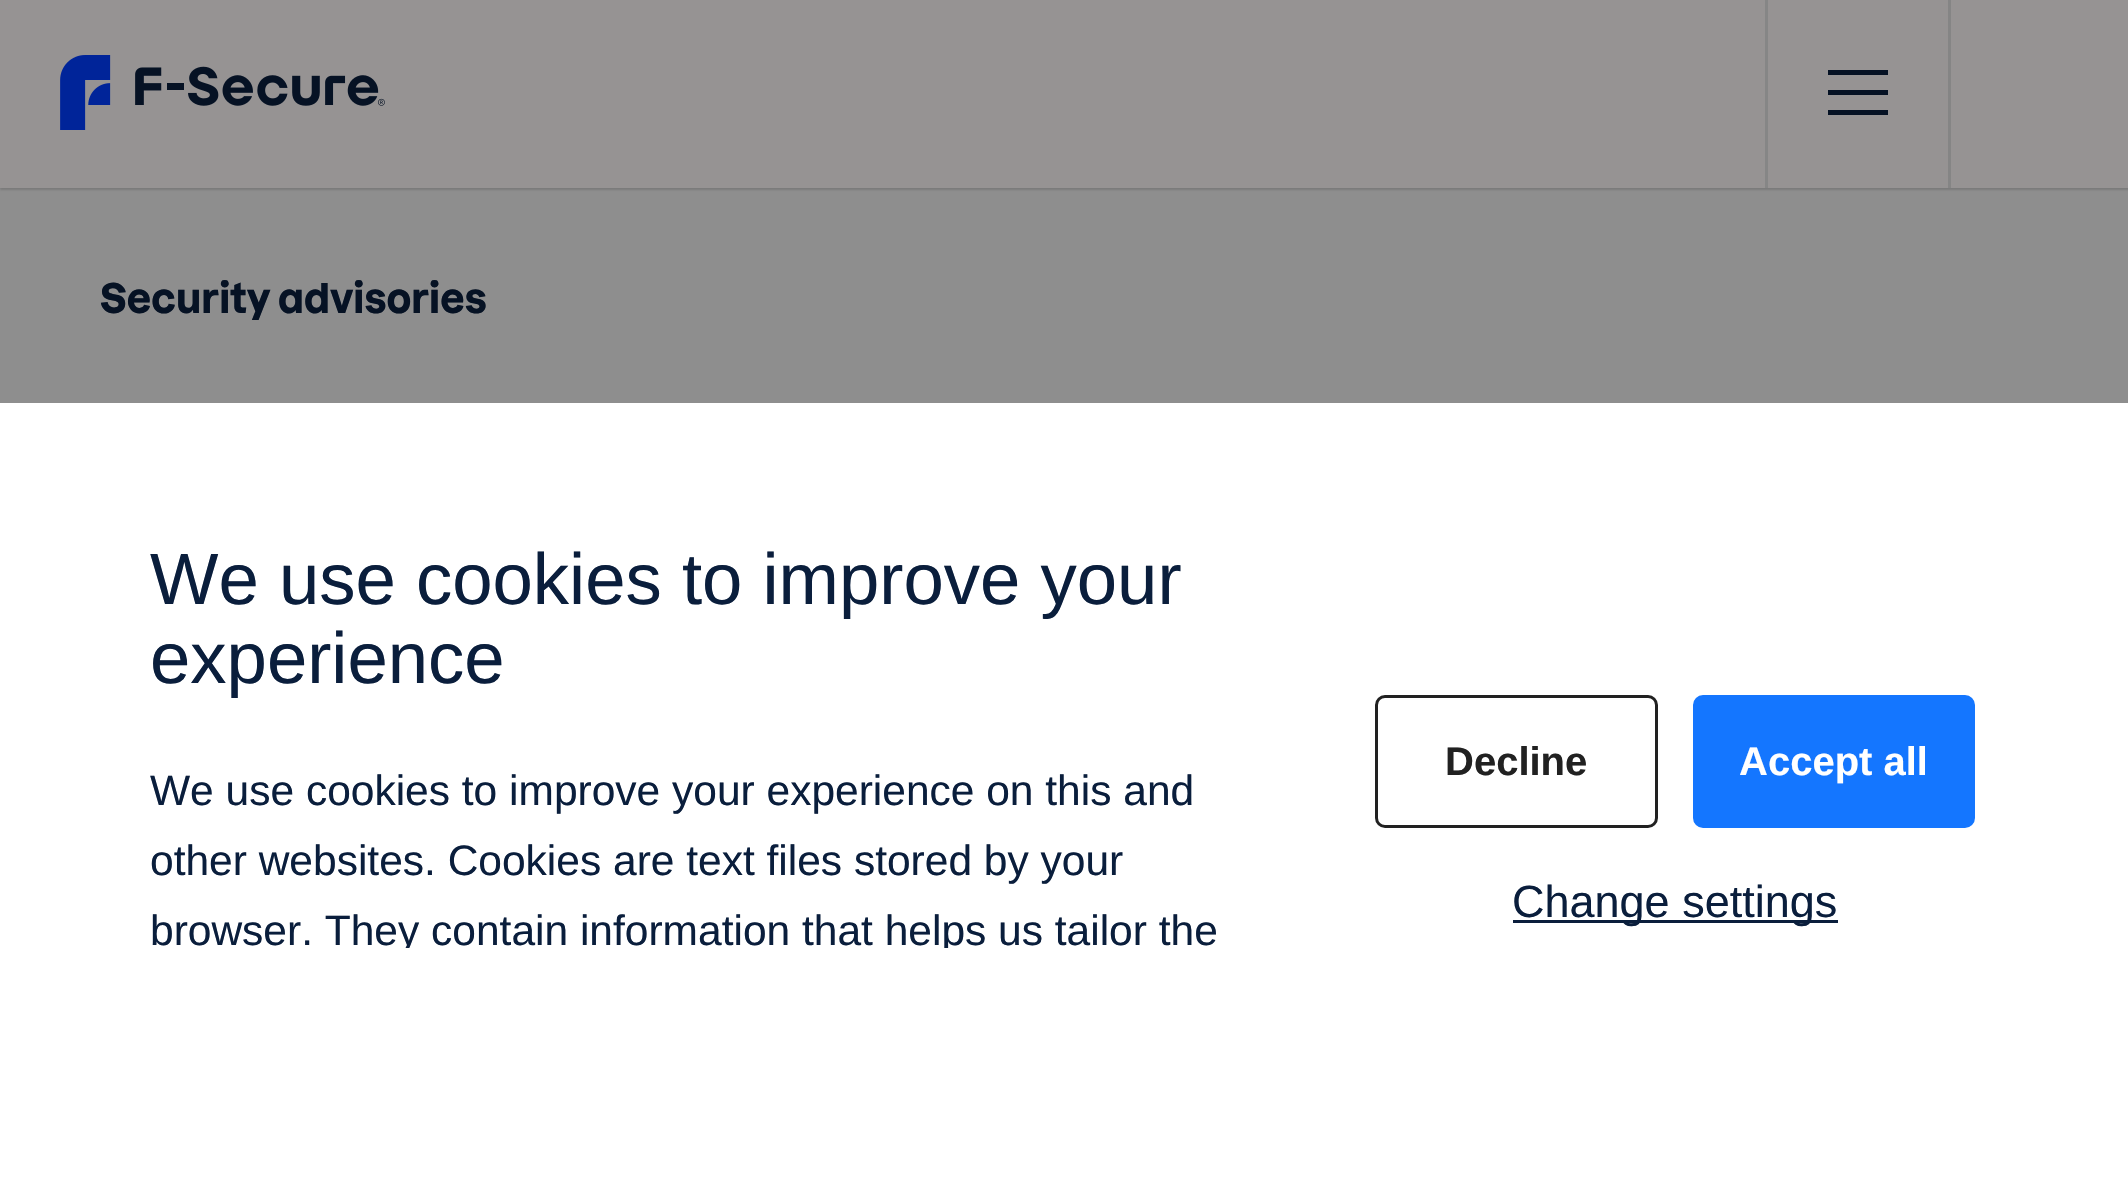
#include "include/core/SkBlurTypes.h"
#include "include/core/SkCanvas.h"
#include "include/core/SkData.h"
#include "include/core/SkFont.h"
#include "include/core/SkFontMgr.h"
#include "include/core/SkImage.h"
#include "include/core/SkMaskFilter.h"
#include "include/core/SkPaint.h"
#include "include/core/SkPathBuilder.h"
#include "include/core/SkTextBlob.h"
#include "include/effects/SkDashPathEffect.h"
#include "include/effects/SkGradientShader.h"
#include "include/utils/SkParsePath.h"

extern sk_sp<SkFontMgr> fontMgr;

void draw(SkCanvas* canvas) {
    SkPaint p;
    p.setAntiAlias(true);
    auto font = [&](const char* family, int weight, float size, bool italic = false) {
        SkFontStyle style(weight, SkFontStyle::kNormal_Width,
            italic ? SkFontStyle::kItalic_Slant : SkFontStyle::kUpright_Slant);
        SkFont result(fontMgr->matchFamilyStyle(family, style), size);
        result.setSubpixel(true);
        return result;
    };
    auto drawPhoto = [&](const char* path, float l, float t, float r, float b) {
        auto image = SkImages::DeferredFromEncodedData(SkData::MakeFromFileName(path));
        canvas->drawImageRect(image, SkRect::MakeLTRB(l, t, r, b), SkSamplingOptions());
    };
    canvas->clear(0xFF8E8E8E);
    p.setColor(0xFF7A7A7A);
    p.setMaskFilter(SkMaskFilter::MakeBlur(kNormal_SkBlurStyle, 1));
    canvas->drawRect(SkRect::MakeLTRB(0, 3, 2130, 190), p);
    p.setMaskFilter(nullptr);
    p.setColor(0xFF969393);
    canvas->drawRect(SkRect::MakeLTRB(0, 0, 2128, 188), p);
    drawPhoto("media/1.png", 60, 55, 385, 130);
    {
        const struct { float l, t, r, b; SkColor color; } items[] = {
            {1765, 0, 1768, 188, 0xFF868686},
            {1828, 70, 1888, 75, 0xFF061224},
            {1828, 90, 1888, 95, 0xFF061224},
            {1828, 110, 1888, 115, 0xFF061224},
            {1948, 0, 1951, 188, 0xFF858585},
        };
        for (auto [l, t, r, b, color] : items) {
            p.setColor(color);
            canvas->drawRect(SkRect::MakeLTRB(l, t, r, b), p);
        }
    }
    auto font1 = font("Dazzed", 700, 40);
    p.setColor(0xFF061224);
    canvas->drawString("Security advisories", 100, 313, font1, p);
    p.setColor(0xFFFFFFFF);
    canvas->drawRect(SkRect::MakeLTRB(0, 403, 2128, 1204), p);
    auto font2 = font("Liberation Sans", 400, 72.5f);
    p.setColor(0xFF0A1E3C);
    canvas->drawString("We use cookies to improve your", 150, 604, font2, p);
    canvas->drawString("experience", 150, 683, font2, p);
    auto font3 = font("Liberation Sans", 400, 42.5f);
    canvas->drawString("We use cookies to improve your experience on this and", 150, 805, font3, p);
    canvas->drawString("other websites. Cookies are text files stored by your", 150, 875, font3, p);
    canvas->save();
    canvas->clipRect(SkRect::MakeLTRB(150, 758, 1310, 948));
    canvas->drawString("browser. They contain information that helps us tailor the", 150, 945, font3, p);
    canvas->restore();
    p.setStyle(SkPaint::kStroke_Style);
    p.setStrokeWidth(3);
    p.setColor(0xFF212121);
    canvas->drawRoundRect(SkRect::MakeLTRB(1376.5f, 696.5f, 1656.5f, 826.5f), 8.5f, 8.5f, p);
    auto font4 = font("Liberation Sans", 700, 40);
    p.setStyle(SkPaint::kFill_Style);
    canvas->drawString("Decline", 1445, 775, font4, p);
    p.setColor(0xFF1476FF);
    canvas->drawRoundRect(SkRect::MakeLTRB(1694.5f, 696.5f, 1973.5f, 826.5f), 8.5f, 8.5f, p);
    p.setStyle(SkPaint::kStroke_Style);
    canvas->drawRoundRect(SkRect::MakeLTRB(1694.5f, 696.5f, 1973.5f, 826.5f), 8.5f, 8.5f, p);
    p.setStyle(SkPaint::kFill_Style);
    p.setColor(0xFFFFFFFF);
    canvas->drawString("Accept all", 1739, 775, font4, p);
    p.setColor(0xFF0A1E3C);
    canvas->drawRect(SkRect::MakeLTRB(1513, 920, 1838, 923), p);
    auto font5 = font("Liberation Sans", 400, 45);
    canvas->drawString("Change settings", 1512, 917, font5, p);
}
